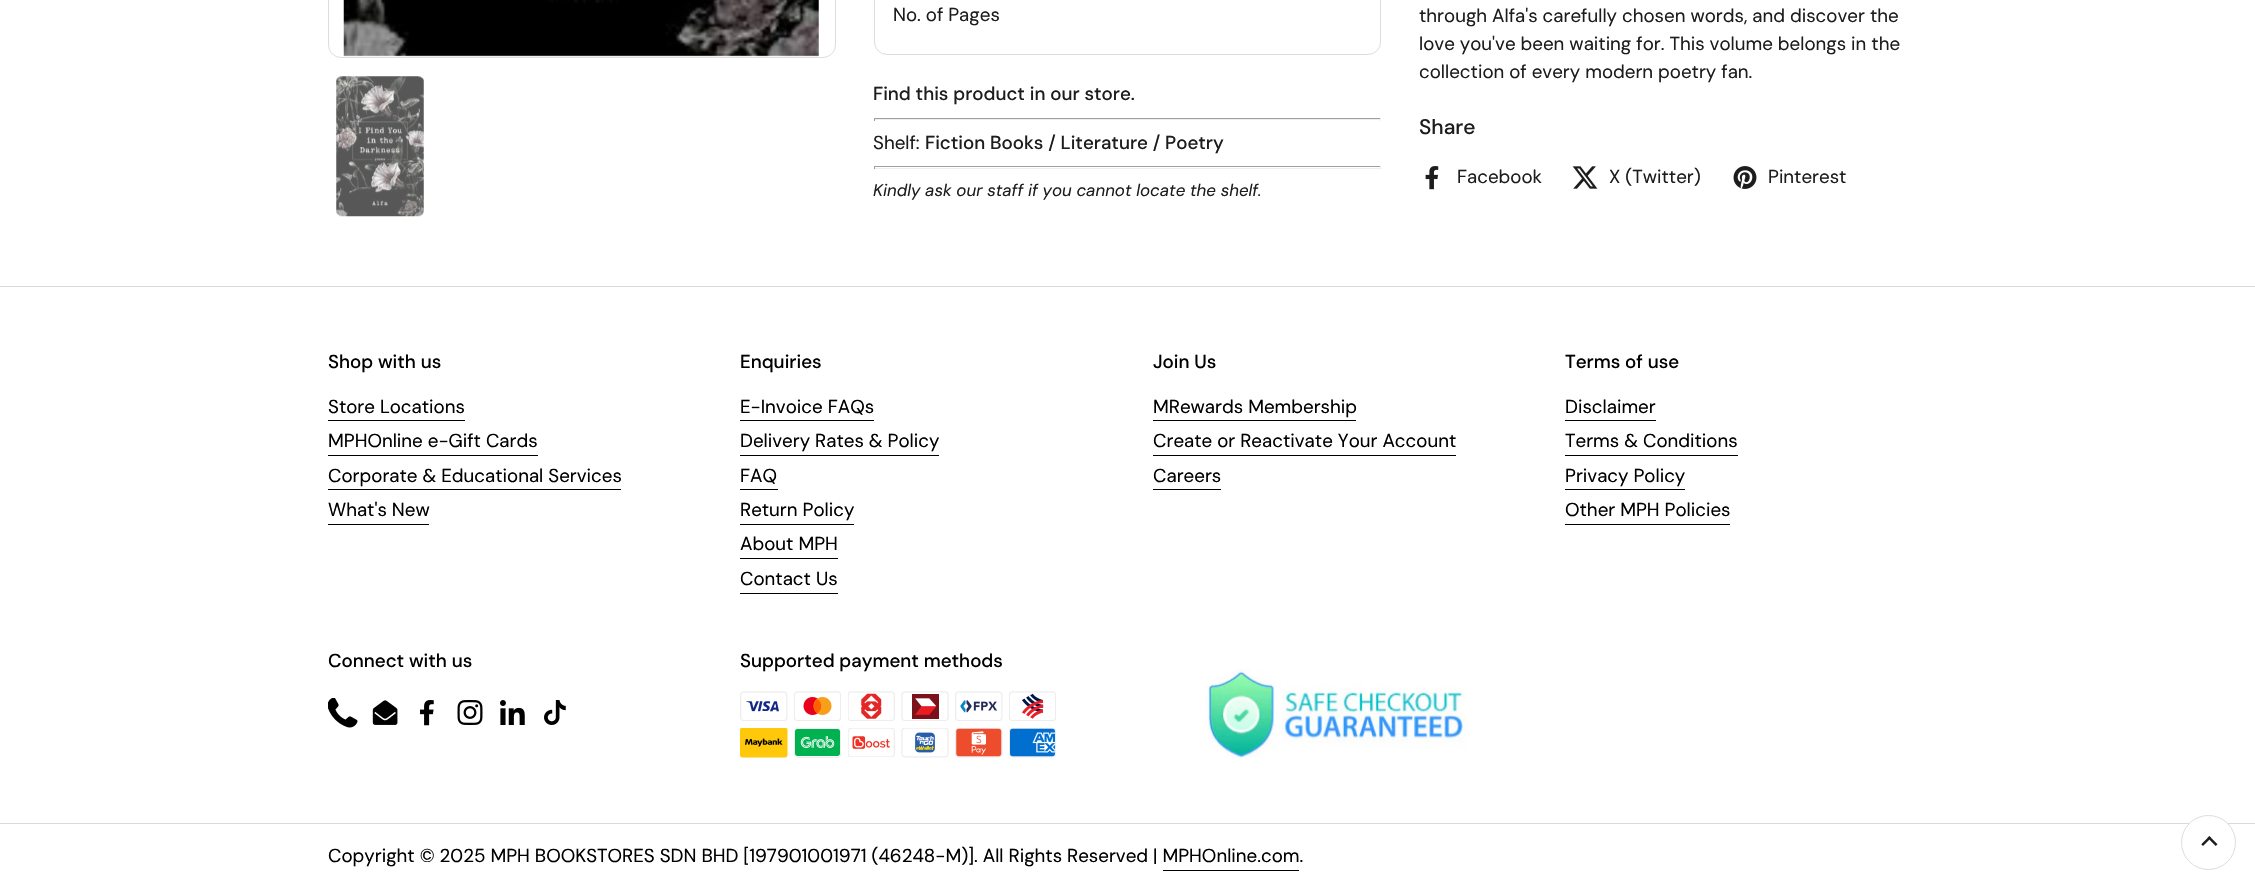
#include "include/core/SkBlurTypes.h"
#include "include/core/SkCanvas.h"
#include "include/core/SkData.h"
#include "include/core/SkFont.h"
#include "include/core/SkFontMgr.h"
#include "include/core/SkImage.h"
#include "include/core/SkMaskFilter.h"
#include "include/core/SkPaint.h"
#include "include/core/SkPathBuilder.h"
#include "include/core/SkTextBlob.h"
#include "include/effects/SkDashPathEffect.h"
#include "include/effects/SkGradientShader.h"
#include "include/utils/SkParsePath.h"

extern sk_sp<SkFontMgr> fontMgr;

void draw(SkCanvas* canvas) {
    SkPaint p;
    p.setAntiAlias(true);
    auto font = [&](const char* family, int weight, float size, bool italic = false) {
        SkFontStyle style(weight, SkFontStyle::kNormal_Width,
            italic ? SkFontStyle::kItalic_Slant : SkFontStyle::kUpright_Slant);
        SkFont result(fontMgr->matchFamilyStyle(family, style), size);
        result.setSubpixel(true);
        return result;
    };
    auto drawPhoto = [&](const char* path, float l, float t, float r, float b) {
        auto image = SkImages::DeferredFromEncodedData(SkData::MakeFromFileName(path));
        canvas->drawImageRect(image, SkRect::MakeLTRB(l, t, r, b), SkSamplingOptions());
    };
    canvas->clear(0xFFFFFFFF);
    p.setStyle(SkPaint::kStroke_Style);
    p.setStrokeWidth(1);
    p.setColor(0xFFDDDDDD);
    canvas->drawRoundRect(SkRect::MakeLTRB(328.5f, -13.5f, 835.5f, 57.5f), 12.5f, 12.5f, p);
    drawPhoto("media/1.png", 343, 0, 819, 57);
    drawPhoto("media/2.png", 336, 76, 424, 217);
    canvas->drawRoundRect(SkRect::MakeLTRB(874.5f, -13.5f, 1380.5f, 54.5f), 12.5f, 12.5f, p);
    auto font1 = font("DM Sans", 400, 18.75f);
    p.setStyle(SkPaint::kFill_Style);
    p.setColor(0xFF1D1D1D);
    canvas->drawString("No. of Pages", 893, 21, font1, p);
    auto font2 = font("DM Sans", 500, 18.75f);
    canvas->drawString("Find this product in our store.", 873, 100, font2, p);
    {
        const struct { float l, t, r, b; SkColor color; } items[] = {
            {874, 118, 1381, 119, 0xFF9F9F9F},
            {1380, 118, 1381, 121, 0xFFEEEEEE},
            {874, 119, 1381, 120, 0xFFEEEEEE},
            {874, 118, 875, 121, 0xFF9F9F9F},
        };
        for (auto [l, t, r, b, color] : items) {
            p.setColor(color);
            canvas->drawRect(SkRect::MakeLTRB(l, t, r, b), p);
        }
    }
    p.setColor(0xFF1D1D1D);
    canvas->drawString("Shelf:", 873, 149, font1, p);
    canvas->drawString("Fiction Books / Literature / Poetry", 925, 149, font2, p);
    {
        const struct { float l, t, r, b; SkColor color; } items[] = {
            {874, 166, 1381, 167, 0xFF9F9F9F},
            {1380, 166, 1381, 169, 0xFFEEEEEE},
            {874, 168, 1381, 169, 0xFFEEEEEE},
            {874, 166, 875, 169, 0xFF9F9F9F},
        };
        for (auto [l, t, r, b, color] : items) {
            p.setColor(color);
            canvas->drawRect(SkRect::MakeLTRB(l, t, r, b), p);
        }
    }
    auto font3 = font("DM Sans", 400, 16.9f, true);
    p.setColor(0xFF1D1D1D);
    canvas->drawString("Kindly ask our staff if you cannot locate the shelf.", 873, 196, font3, p);
    {
        const struct { const char* s; float x, y; } items[] = {
            {"through Alfa's carefully chosen words, and discover the", 1419, 22},
            {"love you've been waiting for. This volume belongs in the", 1419, 50},
            {"collection of every modern poetry fan.", 1419, 78},
        };
        for (auto [s, x, y] : items) {
            canvas->drawString(s, x, y, font1, p);
        }
    }
    auto font4 = font("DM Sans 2", 500, 21);
    canvas->drawString("Share", 1419, 134, font4, p);
    drawPhoto("media/3.png", 1425, 166, 1439, 190);
    canvas->drawString("Facebook", 1457, 183, font1, p);
    drawPhoto("media/4.png", 1572, 166, 1598, 189);
    canvas->drawString("X (Twitter)", 1609, 183, font1, p);
    drawPhoto("media/5.png", 1733, 166, 1757, 189);
    canvas->drawString("Pinterest", 1768, 183, font1, p);
    p.setColor(0xFFD9D9D9);
    canvas->drawRect(SkRect::MakeLTRB(0, 286, 2255, 287), p);
    p.setColor(0xFF000000);
    canvas->drawString("Shop with us", 328, 368, font2, p);
    canvas->drawString("Store Locations", 328, 413, font1, p);
    canvas->drawRect(SkRect::MakeLTRB(328, 420, 465, 421), p);
    canvas->drawString("MPHOnline e-Gift Cards", 328, 447, font1, p);
    canvas->drawRect(SkRect::MakeLTRB(328, 455, 538, 456), p);
    canvas->drawString("Corporate & Educational Services", 328, 482, font1, p);
    canvas->drawRect(SkRect::MakeLTRB(328, 489, 621, 490), p);
    canvas->drawString("What's New", 328, 516, font1, p);
    canvas->drawRect(SkRect::MakeLTRB(328, 524, 429, 525), p);
    canvas->drawString("Enquiries", 740, 368, font2, p);
    canvas->drawString("E-Invoice FAQs", 740, 413, font1, p);
    canvas->drawRect(SkRect::MakeLTRB(740, 420, 874, 421), p);
    canvas->drawString("Delivery Rates & Policy", 740, 447, font1, p);
    canvas->drawRect(SkRect::MakeLTRB(740, 455, 939, 456), p);
    canvas->drawString("FAQ", 740, 482, font1, p);
    canvas->drawRect(SkRect::MakeLTRB(740, 489, 778, 490), p);
    canvas->drawString("Return Policy", 740, 516, font1, p);
    canvas->drawRect(SkRect::MakeLTRB(740, 524, 854, 525), p);
    canvas->drawString("About MPH", 740, 550, font1, p);
    canvas->drawRect(SkRect::MakeLTRB(740, 558, 838, 559), p);
    canvas->drawString("Contact Us", 740, 585, font1, p);
    canvas->drawRect(SkRect::MakeLTRB(740, 593, 838, 594), p);
    canvas->drawString("Join Us", 1153, 368, font2, p);
    canvas->drawString("MRewards Membership", 1153, 413, font1, p);
    canvas->drawRect(SkRect::MakeLTRB(1153, 420, 1356, 421), p);
    canvas->drawString("Create or Reactivate Your Account", 1153, 447, font1, p);
    canvas->drawRect(SkRect::MakeLTRB(1153, 455, 1456, 456), p);
    canvas->drawString("Careers", 1153, 482, font1, p);
    canvas->drawRect(SkRect::MakeLTRB(1153, 489, 1221, 490), p);
    canvas->drawString("Terms of use", 1565, 368, font2, p);
    canvas->drawString("Disclaimer", 1565, 413, font1, p);
    canvas->drawRect(SkRect::MakeLTRB(1565, 420, 1656, 421), p);
    canvas->drawString("Terms & Conditions", 1565, 447, font1, p);
    canvas->drawRect(SkRect::MakeLTRB(1565, 455, 1738, 456), p);
    canvas->drawString("Privacy Policy", 1565, 482, font1, p);
    canvas->drawRect(SkRect::MakeLTRB(1565, 489, 1685, 490), p);
    canvas->drawString("Other MPH Policies", 1565, 516, font1, p);
    canvas->drawRect(SkRect::MakeLTRB(1565, 524, 1730, 525), p);
    canvas->drawString("Connect with us", 328, 667, font2, p);
    drawPhoto("media/6.png", 328, 698, 358, 728);
    drawPhoto("media/7.png", 372, 700, 398, 725);
    drawPhoto("media/8.png", 420, 700, 434, 726);
    drawPhoto("media/9.png", 457, 700, 483, 725);
    drawPhoto("media/10.png", 500, 700, 525, 725);
    drawPhoto("media/11.png", 544, 700, 566, 725);
    canvas->drawString("Supported payment methods", 740, 667, font2, p);
    drawPhoto("media/12.png", 740, 691, 788, 721);
    drawPhoto("media/13.png", 794, 691, 841, 721);
    drawPhoto("media/14.png", 848, 691, 895, 721);
    drawPhoto("media/15.png", 901, 691, 949, 721);
    drawPhoto("media/16.png", 955, 691, 1003, 721);
    drawPhoto("media/17.png", 1009, 691, 1056, 721);
    drawPhoto("media/18.png", 740, 728, 788, 758);
    drawPhoto("media/19.png", 794, 728, 841, 758);
    drawPhoto("media/20.png", 848, 728, 895, 757);
    drawPhoto("media/21.png", 901, 728, 949, 758);
    drawPhoto("media/22.png", 955, 728, 1003, 758);
    drawPhoto("media/23.png", 1009, 728, 1056, 758);
    drawPhoto("media/24.png", 1206, 669, 1467, 758);
    p.setColor(0xFFD9D9D9);
    canvas->drawRect(SkRect::MakeLTRB(0, 823, 2255, 824), p);
    p.setColor(0xFF000000);
    canvas->drawString("Copyright © 2025 MPH BOOKSTORES SDN BHD [197901001971 (46248-M)]. All Rights Reserved | MPHOnline.com.", 328, 862, font1, p);
    canvas->drawRect(SkRect::MakeLTRB(1163, 870, 1299, 871), p);
    p.setColor(0xFFFFFFFF);
    canvas->drawCircle(2208.5f, 842.5f, 27, p);
    p.setStyle(SkPaint::kStroke_Style);
    p.setColor(0xFFDDDDDD);
    canvas->drawCircle(2208.5f, 842.5f, 27, p);
    drawPhoto("media/25.png", 2201, 836, 2218, 846);
}
